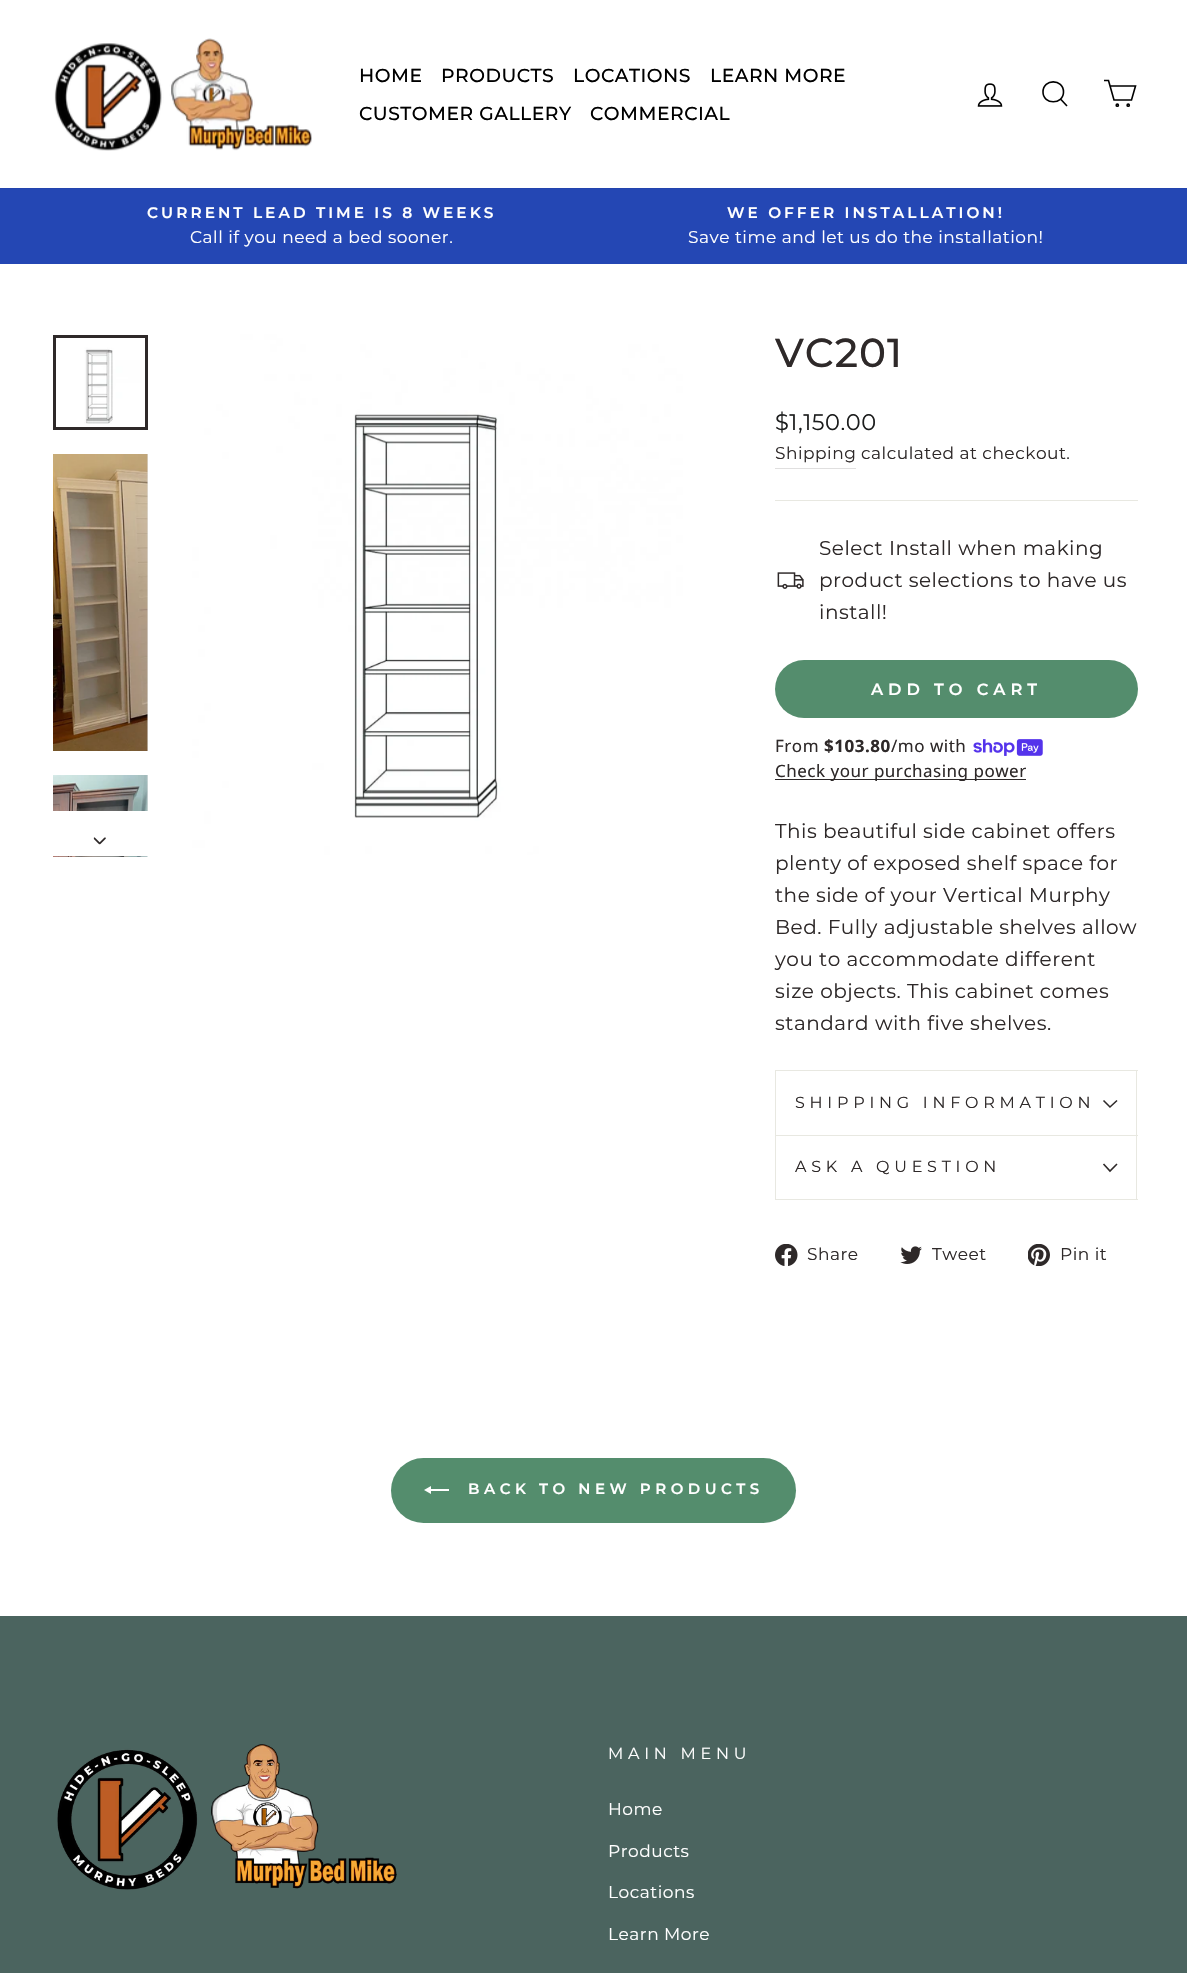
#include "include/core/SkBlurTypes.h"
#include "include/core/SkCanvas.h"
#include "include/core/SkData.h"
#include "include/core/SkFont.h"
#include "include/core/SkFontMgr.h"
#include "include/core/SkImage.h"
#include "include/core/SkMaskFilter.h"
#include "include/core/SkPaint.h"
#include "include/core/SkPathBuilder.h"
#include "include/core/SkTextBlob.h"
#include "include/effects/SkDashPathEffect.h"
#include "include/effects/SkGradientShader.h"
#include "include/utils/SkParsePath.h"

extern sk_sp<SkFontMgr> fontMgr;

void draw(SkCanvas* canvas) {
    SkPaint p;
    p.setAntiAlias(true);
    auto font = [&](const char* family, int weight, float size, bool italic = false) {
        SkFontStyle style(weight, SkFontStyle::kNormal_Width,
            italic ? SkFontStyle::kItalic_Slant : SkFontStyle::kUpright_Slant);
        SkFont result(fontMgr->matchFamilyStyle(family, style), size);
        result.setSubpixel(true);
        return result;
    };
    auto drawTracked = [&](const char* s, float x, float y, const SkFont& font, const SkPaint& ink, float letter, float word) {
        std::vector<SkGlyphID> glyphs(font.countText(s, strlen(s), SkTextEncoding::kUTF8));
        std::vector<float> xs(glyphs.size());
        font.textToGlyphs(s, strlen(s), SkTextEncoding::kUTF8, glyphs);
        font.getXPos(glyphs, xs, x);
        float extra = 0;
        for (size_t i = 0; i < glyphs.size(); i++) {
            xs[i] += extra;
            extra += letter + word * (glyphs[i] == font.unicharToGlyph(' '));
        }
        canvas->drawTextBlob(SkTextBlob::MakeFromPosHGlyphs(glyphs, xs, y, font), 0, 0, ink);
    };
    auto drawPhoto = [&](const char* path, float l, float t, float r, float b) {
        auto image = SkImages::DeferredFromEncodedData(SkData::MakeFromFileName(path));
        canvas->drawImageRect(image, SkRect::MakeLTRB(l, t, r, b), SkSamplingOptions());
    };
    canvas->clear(0xFFFFFFFF);
    p.setColor(0xFF2447B4);
    canvas->drawRect(SkRect::MakeLTRB(0, 188, 1187, 264), p);
    p.setColor(0x33000000);
    p.setMaskFilter(SkMaskFilter::MakeBlur(kNormal_SkBlurStyle, 0.5f));
    canvas->drawRect(SkRect::MakeLTRB(0, 0, 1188, 188), p);
    p.setMaskFilter(nullptr);
    p.setColor(0xFFFFFFFF);
    canvas->drawRect(SkRect::MakeLTRB(0, 0, 1187, 188), p);
    drawPhoto("media/1.png", 54, 38, 312, 151);
    auto font1 = font("Montserrat", 500, 18.75f);
    p.setColor(0xFF000000);
    {
        const struct { const char* s; float x, y; } items[] = {
            {"HOME", 359, 82},
            {"PRODUCTS", 441, 82},
            {"LOCATIONS", 573, 82},
            {"LEARN MORE", 710, 82},
            {"CUSTOMER GALLERY", 359, 120},
            {"COMMERCIAL", 590, 120},
        };
        for (auto [s, x, y] : items) {
            drawTracked(s, x, y, font1, p, 0.5f, 0);
        }
    }
    drawPhoto("media/2.png", 977, 83, 1003, 107);
    p.setStyle(SkPaint::kStroke_Style);
    p.setStrokeWidth(1.6f);
    canvas->drawPath(SkPathBuilder().moveTo(1063.5f, 92).cubicTo(1063.5f, 105, 1043, 105, 1043, 92).cubicTo(1043, 78.5f, 1063.5f, 78.5f, 1063.5f, 92).close().moveTo(1067, 106).lineTo(1060.5f, 99).detach(), p);
    canvas->drawPath(SkPathBuilder().moveTo(1110, 86).lineTo(1135.5f, 86).lineTo(1131.5f, 100).lineTo(1114, 100).lineTo(1108.5f, 80.5f).lineTo(1104, 80.5f).detach(), p);
    canvas->drawCircle(1117.3f, 105.2f, 1.1f, p);
    canvas->drawCircle(1128.2f, 105.2f, 1.1f, p);
    auto font2 = font("Montserrat", 600, 15.3f);
    p.setStyle(SkPaint::kFill_Style);
    p.setColor(0xFFFFFFFF);
    drawTracked("CURRENT LEAD TIME IS 8 WEEKS", 147, 218, font2, p, 3.05f, 0);
    auto font3 = font("Montserrat", 400, 17);
    drawTracked("Call if you need a bed sooner.", 190, 243, font3, p, 0.5f, 0);
    drawTracked("WE OFFER INSTALLATION!", 727, 218, font2, p, 3.05f, 0);
    drawTracked("Save time and let us do the installation!", 688, 243, font3, p, 0.5f, 0);
    drawPhoto("media/3.png", 56, 338, 145, 427);
    p.setStyle(SkPaint::kStroke_Style);
    p.setStrokeWidth(3);
    p.setColor(0xFF2E2929);
    canvas->drawRect(SkRect::MakeLTRB(54.5f, 336.5f, 146.5f, 428.5f), p);
    p.setStyle(SkPaint::kFill_Style);
    p.setColor(0xFFE5E5E5);
    canvas->drawRect(SkRect::MakeLTRB(147, 454, 148, 751), p);
    drawPhoto("media/4.png", 53, 454, 148, 751);
    canvas->drawRect(SkRect::MakeLTRB(147, 775, 148, 811), p);
    drawPhoto("media/5.png", 53, 775, 148, 857);
    p.setColor(0xFFFFFFFF);
    canvas->drawRect(SkRect::MakeLTRB(53, 811, 148, 856), p);
    drawPhoto("media/6.png", 93, 837, 106, 845);
    drawPhoto("media/7.png", 170, 334, 690, 855);
    auto font4 = font("Montserrat", 500, 40.5f);
    p.setColor(0xFF2E2929);
    drawTracked("VC201", 775, 367, font4, p, 1, 0);
    auto font5 = font("Montserrat", 400, 22.5f);
    p.setColor(0xFF1C1D1D);
    drawTracked("$1,150.00", 775, 430, font5, p, 0.5f, 0);
    p.setColor(0xFFE0DFDF);
    canvas->drawRect(SkRect::MakeLTRB(775, 468, 856, 469), p);
    p.setColor(0xFF2E2929);
    drawTracked("Shipping", 775, 459, font3, p, 0.5f, 0);
    drawTracked("calculated at checkout.", 861, 459, font3, p, 0.5f, 0);
    p.setColor(0xFFE8E8E1);
    canvas->drawRect(SkRect::MakeLTRB(775, 500, 1138, 501), p);
    drawPhoto("media/8.png", 777, 572, 804, 589);
    auto font6 = font("Montserrat", 400, 20);
    p.setColor(0xFF2E2929);
    {
        const struct { const char* s; float x, y; } items[] = {
            {"Select Install when making", 819, 555},
            {"product selections to have us", 819, 587},
            {"install!", 819, 619},
        };
        for (auto [s, x, y] : items) {
            drawTracked(s, x, y, font6, p, 0.5f, 0);
        }
    }
    p.setColor(0xFF548D6D);
    canvas->drawRoundRect(SkRect::MakeLTRB(775, 660, 1138, 718), 29, 29, p);
    auto font7 = font("Montserrat", 600, 16.25f);
    p.setColor(0xFFFFFFFF);
    drawTracked("ADD TO CART", 871, 695, font7, p, 4.9f, 0);
    auto font8 = font("Noto Sans", 400, 17);
    p.setColor(0xFF2E2929);
    drawTracked("From", 775, 752, font8, p, 0.5f, 0);
    auto font9 = font("Noto Sans", 700, 17);
    drawTracked("$103.80", 824, 752, font9, p, 0.5f, 0);
    drawTracked("/mo with", 891, 752, font8, p, 0.5f, 0);
    drawPhoto("media/9.png", 973, 739, 1043, 756);
    canvas->drawRect(SkRect::MakeLTRB(775, 779, 1026, 780), p);
    drawTracked("Check your purchasing power", 775, 777, font8, p, 0.5f, 0);
    {
        const struct { const char* s; float x, y; } items[] = {
            {"This beautiful side cabinet offers", 775, 838},
            {"plenty of exposed shelf space for", 775, 870},
            {"the side of your Vertical Murphy", 775, 902},
            {"Bed. Fully adjustable shelves allow", 775, 934},
            {"you to accommodate different", 775, 966},
            {"size objects. This cabinet comes", 775, 998},
            {"standard with five shelves.", 775, 1030},
        };
        for (auto [s, x, y] : items) {
            drawTracked(s, x, y, font6, p, 0.5f, 0);
        }
    }
    {
        const struct { float l, t, r, b; SkColor color; } items[] = {
            {775, 1135, 1138, 1136, 0xFFE8E8E1},
            {775, 1070, 1138, 1071, 0xFFE8E8E1},
            {1136, 1070, 1137, 1135, 0xFFE8E8E1},
            {775, 1070, 776, 1135, 0xFFE8E8E1},
        };
        for (auto [l, t, r, b, color] : items) {
            p.setColor(color);
            canvas->drawRect(SkRect::MakeLTRB(l, t, r, b), p);
        }
    }
    auto font10 = font("Montserrat", 400, 16);
    p.setColor(0xFF2E2929);
    drawTracked("SHIPPING INFORMATION", 795, 1108, font10, p, 4.75f, 0);
    p.setStyle(SkPaint::kStroke_Style);
    p.setStrokeWidth(1.6f);
    canvas->drawPath(SkPathBuilder().moveTo(1103.5f, 1100.5f).lineTo(1110, 1107).lineTo(1117, 1100.5f).detach(), p);
    p.setStyle(SkPaint::kFill_Style);
    {
        const struct { float l, t, r, b; SkColor color; } items[] = {
            {775, 1199, 1138, 1200, 0xFFE8E8E1},
            {1136, 1136, 1137, 1199, 0xFFE8E8E1},
            {775, 1136, 776, 1199, 0xFFE8E8E1},
        };
        for (auto [l, t, r, b, color] : items) {
            p.setColor(color);
            canvas->drawRect(SkRect::MakeLTRB(l, t, r, b), p);
        }
    }
    p.setColor(0xFF2E2929);
    drawTracked("ASK A QUESTION", 795, 1172, font10, p, 4.75f, 0);
    p.setStyle(SkPaint::kStroke_Style);
    canvas->drawPath(SkPathBuilder().moveTo(1103.5f, 1164).lineTo(1110, 1171).lineTo(1117, 1164).detach(), p);
    drawPhoto("media/10.png", 775, 1244, 798, 1266);
    p.setStyle(SkPaint::kFill_Style);
    drawTracked("Share", 807, 1260, font3, p, 0.5f, 0);
    drawPhoto("media/11.png", 900, 1246, 922, 1264);
    drawTracked("Tweet", 932, 1260, font3, p, 0.5f, 0);
    drawPhoto("media/12.png", 1028, 1244, 1050, 1266);
    drawTracked("Pin it", 1060, 1260, font3, p, 0.5f, 0);
    p.setColor(0xFF548D6D);
    canvas->drawRoundRect(SkRect::MakeLTRB(391, 1458, 796, 1523), 32.5f, 32.5f, p);
    p.setColor(0xFFFFFFFF);
    canvas->drawPath(SkPathBuilder().moveTo(449, 1489).lineTo(449, 1491).lineTo(431, 1491).lineTo(431, 1494).lineTo(424, 1490).lineTo(431, 1486).lineTo(431, 1489).close().detach(), p);
    auto font11 = font("Montserrat", 600, 15);
    drawTracked("BACK TO NEW PRODUCTS", 468, 1494, font11, p, 4.5f, 0);
    p.setColor(0xFF4B645F);
    canvas->drawRect(SkRect::MakeLTRB(0, 1616, 1187, 1973), p);
    drawPhoto("media/13.png", 57, 1744, 397, 1890);
    p.setColor(0xFFFFFFFF);
    drawTracked("MAIN MENU", 608, 1759, font10, p, 4.75f, 0);
    {
        const struct { const char* s; float x, y; } items[] = {
            {"Home", 608, 1815},
            {"Products", 608, 1857},
            {"Locations", 608, 1898},
            {"Learn More", 608, 1940},
        };
        for (auto [s, x, y] : items) {
            drawTracked(s, x, y, font3, p, 0.5f, 0);
        }
    }
}
